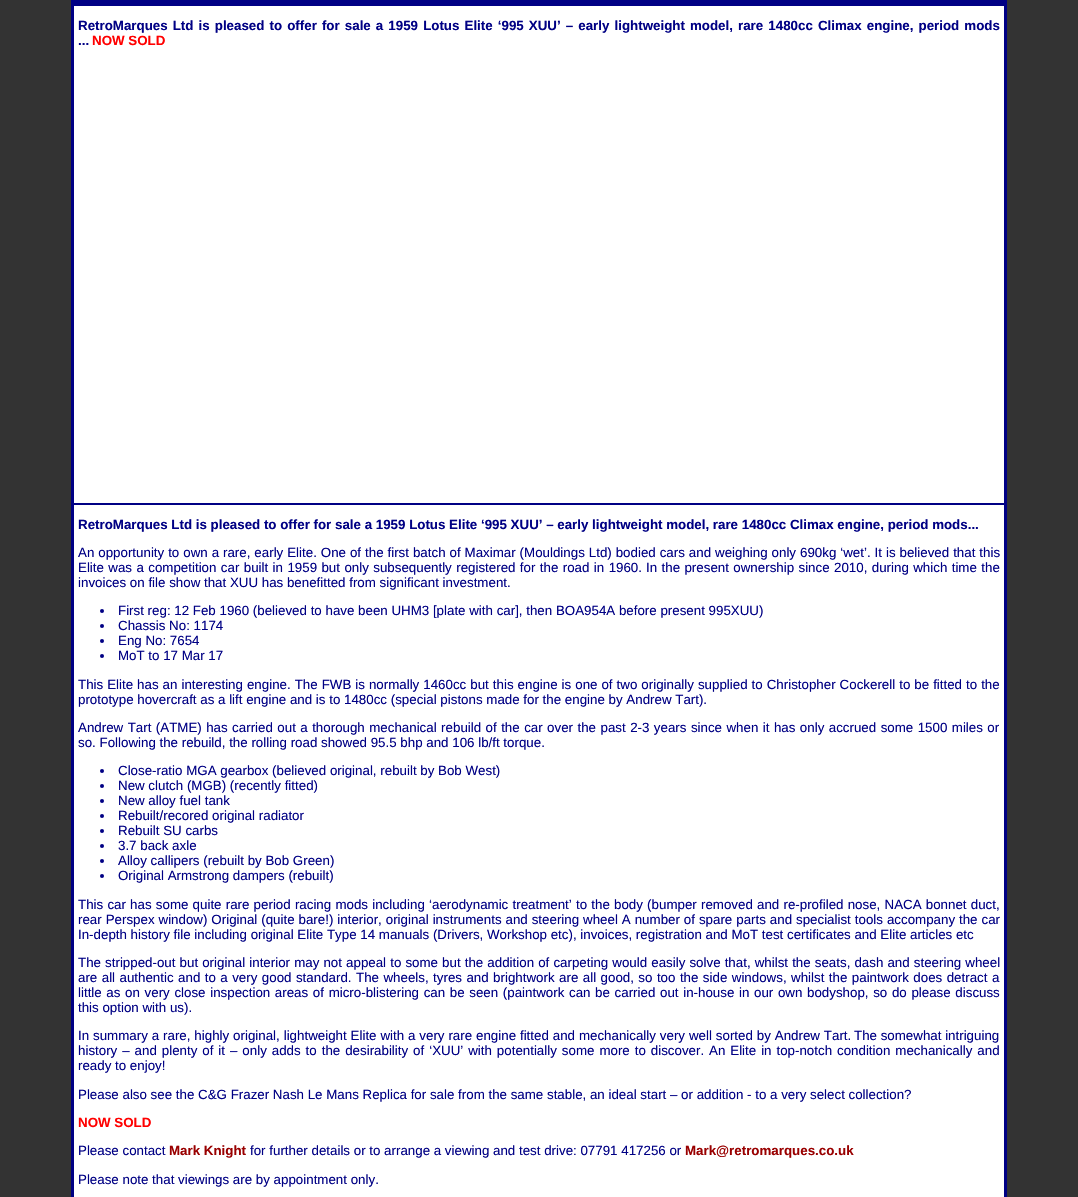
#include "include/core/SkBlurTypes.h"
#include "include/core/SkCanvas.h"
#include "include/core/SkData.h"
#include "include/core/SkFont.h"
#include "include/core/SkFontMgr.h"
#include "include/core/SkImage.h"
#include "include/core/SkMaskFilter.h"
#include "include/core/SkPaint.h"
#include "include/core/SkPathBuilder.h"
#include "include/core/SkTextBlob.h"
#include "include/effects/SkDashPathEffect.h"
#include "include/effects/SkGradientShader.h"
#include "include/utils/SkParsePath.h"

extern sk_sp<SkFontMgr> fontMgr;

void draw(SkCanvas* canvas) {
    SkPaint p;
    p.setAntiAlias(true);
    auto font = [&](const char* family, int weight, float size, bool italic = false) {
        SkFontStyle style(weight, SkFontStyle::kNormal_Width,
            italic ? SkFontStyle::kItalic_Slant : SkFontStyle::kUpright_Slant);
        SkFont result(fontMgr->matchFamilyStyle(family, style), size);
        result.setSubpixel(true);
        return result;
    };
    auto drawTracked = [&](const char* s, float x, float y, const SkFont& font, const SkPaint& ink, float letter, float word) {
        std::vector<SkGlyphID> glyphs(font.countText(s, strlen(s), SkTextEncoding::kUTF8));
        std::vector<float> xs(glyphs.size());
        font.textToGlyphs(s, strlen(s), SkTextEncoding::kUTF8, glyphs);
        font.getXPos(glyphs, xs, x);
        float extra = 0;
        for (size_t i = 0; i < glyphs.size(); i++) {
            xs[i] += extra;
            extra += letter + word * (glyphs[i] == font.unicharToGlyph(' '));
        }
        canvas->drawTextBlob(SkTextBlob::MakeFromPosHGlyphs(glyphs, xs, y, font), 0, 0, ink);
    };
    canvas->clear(0xFF333333);
    p.setColor(0xFF000084);
    canvas->drawRect(SkRect::MakeLTRB(71, 0, 1007, 1197), p);
    p.setColor(0xFFFFFFFF);
    canvas->drawRect(SkRect::MakeLTRB(74, 6, 1004, 503), p);
    auto font1 = font("Liberation Sans", 700, 13.33f);
    p.setColor(0xFF000084);
    drawTracked("RetroMarques Ltd is pleased to offer for sale a 1959 Lotus Elite ‘995 XUU’ – early lightweight model, rare 1480cc Climax engine, period mods", 78, 30, font1, p, 0, 1.4f);
    canvas->drawString("...", 78, 45, font1, p);
    p.setColor(0xFFFF0000);
    canvas->drawString("NOW SOLD", 92, 45, font1, p);
    p.setColor(0xFFFFFFFF);
    canvas->drawRect(SkRect::MakeLTRB(74, 505, 1004, 1197), p);
    p.setColor(0xFF000084);
    canvas->drawString("RetroMarques Ltd is pleased to offer for sale a 1959 Lotus Elite ‘995 XUU’ – early lightweight model, rare 1480cc Climax engine, period mods...", 78, 529, font1, p);
    auto font2 = font("Liberation Sans", 400, 13.33f);
    drawTracked("An opportunity to own a rare, early Elite. One of the first batch of Maximar (Mouldings Ltd) bodied cars and weighing only 690kg ‘wet’. It is believed that this", 78, 557, font2, p, 0, 0.25f);
    drawTracked("Elite was a competition car built in 1959 but only subsequently registered for the road in 1960.", 78, 572, font2, p, 0, 0.7f);
    drawTracked("In the present ownership since 2010, during which time the", 646, 572, font2, p, 0, 0.7f);
    canvas->drawString("invoices on file show that XUU has benefitted from significant investment.", 78, 587, font2, p);
    canvas->drawCircle(102, 611, 2, p);
    canvas->drawString("First reg: 12 Feb 1960 (believed to have been UHM3 [plate with car], then BOA954A before present 995XUU)", 118, 615, font2, p);
    canvas->drawCircle(102, 626, 2, p);
    canvas->drawString("Chassis No: 1174", 118, 630, font2, p);
    canvas->drawCircle(102, 641, 2, p);
    canvas->drawString("Eng No: 7654", 118, 645, font2, p);
    canvas->drawCircle(102, 656, 2, p);
    canvas->drawString("MoT to 17 Mar 17", 118, 660, font2, p);
    drawTracked("This Elite has an interesting engine. The FWB is normally 1460cc but this engine is one of two originally supplied to Christopher Cockerell to be fitted to the", 78, 689, font2, p, 0, 0.3f);
    canvas->drawString("prototype hovercraft as a lift engine and is to 1480cc (special pistons made for the engine by Andrew Tart).", 78, 704, font2, p);
    drawTracked("Andrew Tart (ATME) has carried out a thorough mechanical rebuild of the car over the past 2-3 years since when it has only accrued some 1500 miles or", 78, 732, font2, p, 0, 0.75f);
    canvas->drawString("so. Following the rebuild, the rolling road showed 95.5 bhp and 106 lb/ft torque.", 78, 747, font2, p);
    canvas->drawCircle(102, 771, 2, p);
    canvas->drawString("Close-ratio MGA gearbox (believed original, rebuilt by Bob West)", 118, 775, font2, p);
    canvas->drawCircle(102, 786, 2, p);
    canvas->drawString("New clutch (MGB) (recently fitted)", 118, 790, font2, p);
    canvas->drawCircle(102, 801, 2, p);
    canvas->drawString("New alloy fuel tank", 118, 805, font2, p);
    canvas->drawCircle(102, 816, 2, p);
    canvas->drawString("Rebuilt/recored original radiator", 118, 820, font2, p);
    canvas->drawCircle(102, 831, 2, p);
    canvas->drawString("Rebuilt SU carbs", 118, 835, font2, p);
    canvas->drawCircle(102, 846, 2, p);
    canvas->drawString("3.7 back axle", 118, 850, font2, p);
    canvas->drawCircle(102, 861, 2, p);
    canvas->drawString("Alloy callipers (rebuilt by Bob Green)", 118, 865, font2, p);
    canvas->drawCircle(102, 876, 2, p);
    canvas->drawString("Original Armstrong dampers (rebuilt)", 118, 880, font2, p);
    drawTracked("This car has some quite rare period racing mods including ‘aerodynamic treatment’ to the body (bumper removed and re-profiled nose, NACA bonnet duct,", 78, 909, font2, p, 0, 0.5f);
    drawTracked("rear Perspex window) Original (quite bare!) interior, original instruments and steering wheel A number of spare parts and specialist tools accompany the car", 78, 924, font2, p, 0, 0.25f);
    canvas->drawString("In-depth history file including original Elite Type 14 manuals (Drivers, Workshop etc), invoices, registration and MoT test certificates and Elite articles etc", 78, 939, font2, p);
    drawTracked("The stripped-out but original interior may not appeal to some but the addition of carpeting would easily solve that, whilst the seats, dash and steering wheel", 78, 967, font2, p, 0, 0.4f);
    drawTracked("are all authentic and to a very good standard.", 78, 982, font2, p, 0, 0.75f);
    drawTracked("The wheels, tyres and brightwork are all good, so too the side windows, whilst the paintwork does detract a", 356, 982, font2, p, 0, 0.75f);
    drawTracked("little as on very close inspection areas of micro-blistering can be seen (paintwork can be carried out in-house in our own bodyshop, so do please discuss", 78, 997, font2, p, 0, 0.95f);
    canvas->drawString("this option with us).", 78, 1012, font2, p);
    drawTracked("In summary a rare, highly original, lightweight Elite with a very rare engine fitted and mechanically very well sorted by Andrew Tart.", 78, 1040, font2, p, 0, 0.2f);
    canvas->drawString("The somewhat intriguing", 854, 1040, font2, p);
    drawTracked("history – and plenty of it – only adds to the desirability of ‘XUU’ with potentially some more to discover.", 78, 1055, font2, p, 0, 1.25f);
    drawTracked("An Elite in top-notch condition mechanically and", 709, 1055, font2, p, 0, 1.25f);
    canvas->drawString("ready to enjoy!", 78, 1070, font2, p);
    canvas->drawString("Please also see the C&G Frazer Nash Le Mans Replica for sale from the same stable, an ideal start – or addition - to a very select collection?", 78, 1099, font2, p);
    p.setColor(0xFFFF0000);
    canvas->drawString("NOW SOLD", 78, 1127, font1, p);
    p.setColor(0xFF000084);
    canvas->drawString("Please contact", 78, 1155, font2, p);
    p.setColor(0xFF990000);
    canvas->drawString("Mark Knight", 169, 1155, font1, p);
    p.setColor(0xFF000084);
    canvas->drawString("for further details or to arrange a viewing and test drive: 07791 417256 or", 250, 1155, font2, p);
    p.setColor(0xFF990000);
    canvas->drawString("Mark@retromarques.co.uk", 685, 1155, font1, p);
    p.setColor(0xFF000084);
    canvas->drawString("Please note that viewings are by appointment only.", 78, 1184, font2, p);
}
